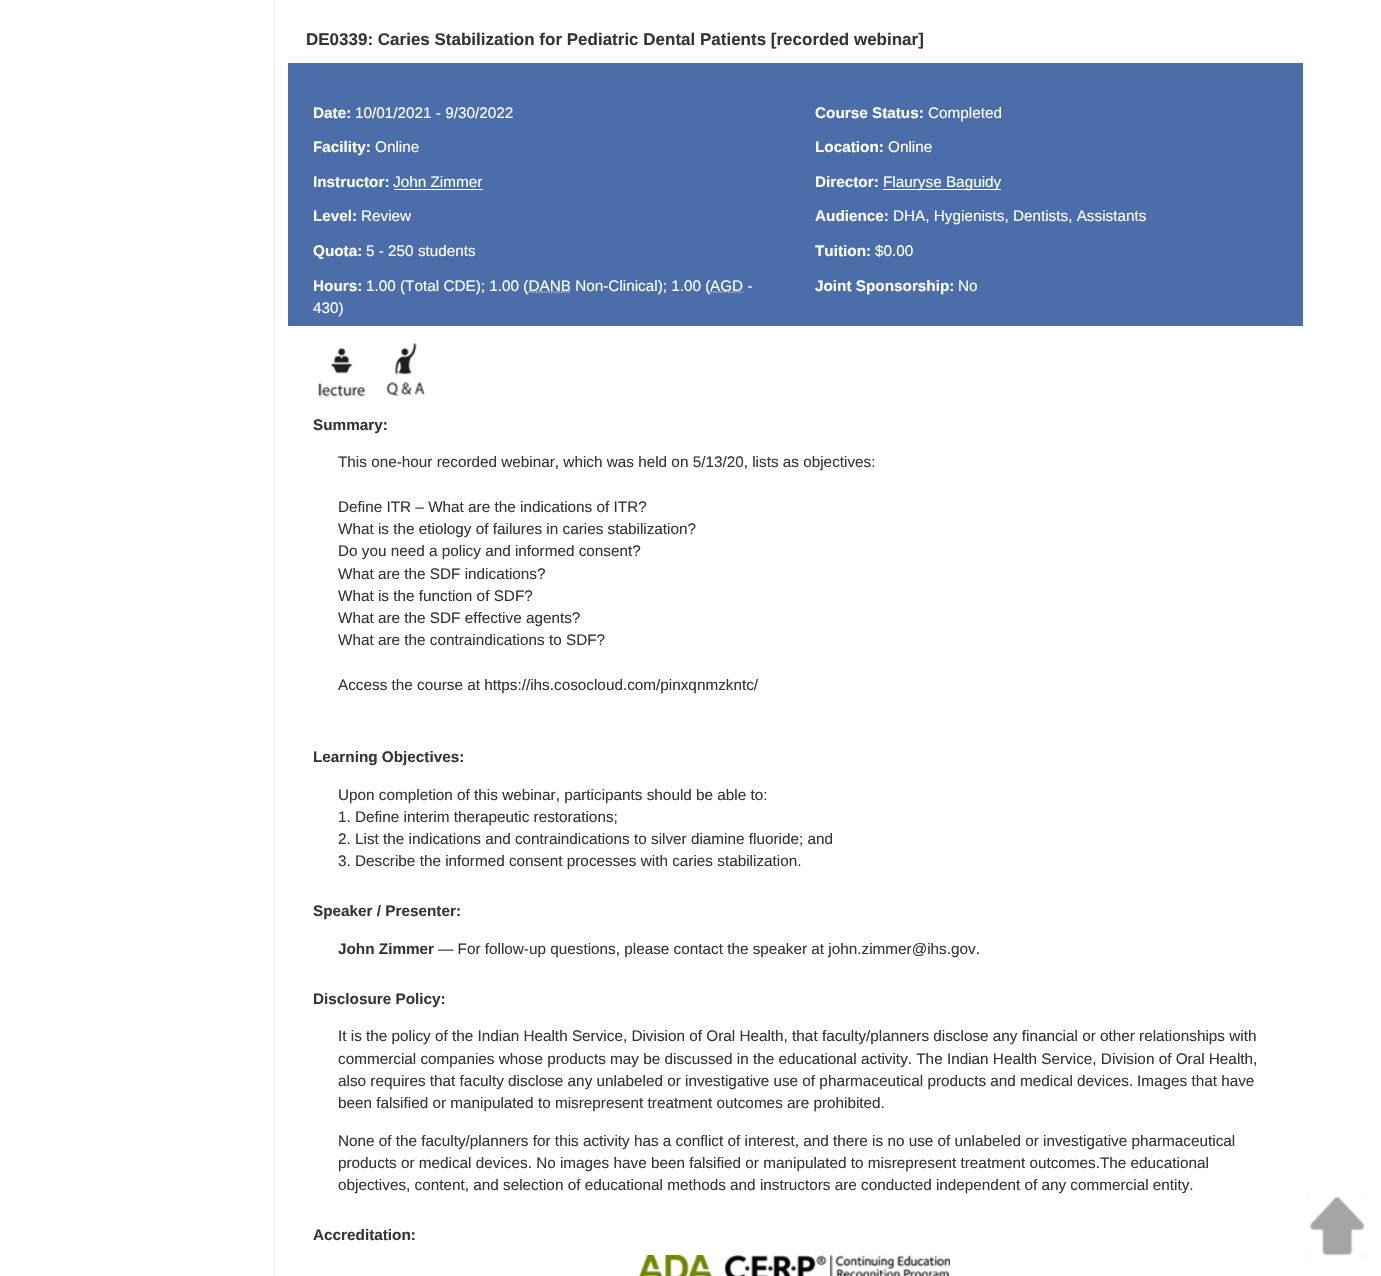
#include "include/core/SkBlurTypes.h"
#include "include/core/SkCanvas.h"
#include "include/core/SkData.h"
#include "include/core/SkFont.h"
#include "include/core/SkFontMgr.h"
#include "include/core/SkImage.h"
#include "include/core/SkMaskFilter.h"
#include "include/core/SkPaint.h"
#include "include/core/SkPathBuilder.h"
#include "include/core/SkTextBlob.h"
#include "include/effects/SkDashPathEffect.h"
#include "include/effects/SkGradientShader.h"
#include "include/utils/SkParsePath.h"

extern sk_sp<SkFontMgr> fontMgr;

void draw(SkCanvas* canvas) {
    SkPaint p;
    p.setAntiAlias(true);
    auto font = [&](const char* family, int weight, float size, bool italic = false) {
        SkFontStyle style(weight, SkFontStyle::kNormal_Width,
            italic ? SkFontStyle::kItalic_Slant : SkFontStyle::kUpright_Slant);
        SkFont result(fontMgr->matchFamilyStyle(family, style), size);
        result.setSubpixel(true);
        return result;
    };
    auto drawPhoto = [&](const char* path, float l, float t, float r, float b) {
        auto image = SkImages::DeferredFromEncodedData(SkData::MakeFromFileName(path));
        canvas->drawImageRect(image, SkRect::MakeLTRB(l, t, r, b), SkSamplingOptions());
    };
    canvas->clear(0xFFFFFFFF);
    p.setColor(0xFFEEEEEE);
    canvas->drawRect(SkRect::MakeLTRB(274, 0, 275, 1276), p);
    auto font1 = font("Liberation Sans", 700, 17);
    p.setColor(0xFF353535);
    canvas->drawString("DE0339: Caries Stabilization for Pediatric Dental Patients [recorded webinar]", 306, 45, font1, p);
    p.setColor(0xFF4B6EAA);
    canvas->drawRect(SkRect::MakeLTRB(288, 63, 1303, 326), p);
    auto font2 = font("Liberation Sans", 700, 15.3f);
    p.setColor(0xFFFFFFFF);
    canvas->drawString("Date:", 313, 118, font2, p);
    auto font3 = font("Liberation Sans", 400, 15.3f);
    canvas->drawString("10/01/2021 - 9/30/2022", 355, 118, font3, p);
    canvas->drawString("Course Status:", 815, 118, font2, p);
    canvas->drawString("Completed", 928, 118, font3, p);
    canvas->drawString("Facility:", 313, 152, font2, p);
    canvas->drawString("Online", 375, 152, font3, p);
    canvas->drawString("Location:", 815, 152, font2, p);
    canvas->drawString("Online", 888, 152, font3, p);
    canvas->drawString("Instructor:", 313, 187, font2, p);
    canvas->drawString("John Zimmer", 393, 187, font3, p);
    canvas->drawRect(SkRect::MakeLTRB(394, 189, 483, 190), p);
    canvas->drawString("Director:", 815, 187, font2, p);
    canvas->drawRect(SkRect::MakeLTRB(883, 189, 1001, 190), p);
    canvas->drawString("Flauryse Baguidy", 883, 187, font3, p);
    canvas->drawString("Level:", 313, 221, font2, p);
    canvas->drawString("Review", 361, 221, font3, p);
    canvas->drawString("Audience:", 815, 221, font2, p);
    canvas->drawString("DHA, Hygienists, Dentists, Assistants", 893, 221, font3, p);
    canvas->drawString("Quota:", 313, 256, font2, p);
    canvas->drawString("5 - 250 students", 366, 256, font3, p);
    canvas->drawString("Tuition:", 815, 256, font2, p);
    canvas->drawString("$0.00", 875, 256, font3, p);
    canvas->drawString("Hours:", 313, 291, font2, p);
    canvas->drawString("1.00 (Total CDE); 1.00 (DANB Non-Clinical); 1.00 (", 366, 291, font3, p);
    p.setStyle(SkPaint::kStroke_Style);
    p.setStrokeWidth(1.2f);
    p.setPathEffect(SkDashPathEffect::Make({{1.25f, 1.25f}}, 0));
    canvas->drawPath(SkPathBuilder().moveTo(710.5f, 292).lineTo(743.5f, 292).detach(), p);
    p.setPathEffect(nullptr);
    p.setStyle(SkPaint::kFill_Style);
    canvas->drawString("AGD -", 710, 291, font3, p);
    p.setStyle(SkPaint::kStroke_Style);
    p.setPathEffect(SkDashPathEffect::Make({{1.25f, 1.25f}}, 0));
    canvas->drawPath(SkPathBuilder().moveTo(528.5f, 292).lineTo(571, 292).detach(), p);
    p.setPathEffect(nullptr);
    p.setStyle(SkPaint::kFill_Style);
    canvas->drawString("430)", 313, 313, font3, p);
    canvas->drawString("Joint Sponsorship:", 815, 291, font2, p);
    canvas->drawString("No", 958, 291, font3, p);
    drawPhoto("media/1.png", 318, 347, 366, 397);
    drawPhoto("media/2.png", 386, 342, 426, 397);
    p.setColor(0xFF353535);
    canvas->drawString("Summary:", 313, 430, font2, p);
    {
        const struct { const char* s; float x, y; } items[] = {
            {"This one-hour recorded webinar, which was held on 5/13/20, lists as objectives:", 338, 467},
            {"Define ITR – What are the indications of ITR?", 338, 512},
            {"What is the etiology of failures in caries stabilization?", 338, 534},
            {"Do you need a policy and informed consent?", 338, 556},
            {"What are the SDF indications?", 338, 579},
            {"What is the function of SDF?", 338, 601},
            {"What are the SDF effective agents?", 338, 623},
            {"What are the contraindications to SDF?", 338, 645},
            {"Access the course at https://ihs.cosocloud.com/pinxqnmzkntc/", 338, 690},
        };
        for (auto [s, x, y] : items) {
            canvas->drawString(s, x, y, font3, p);
        }
    }
    canvas->drawString("Learning Objectives:", 313, 762, font2, p);
    {
        const struct { const char* s; float x, y; } items[] = {
            {"Upon completion of this webinar, participants should be able to:", 338, 800},
            {"1. Define interim therapeutic restorations;", 338, 822},
            {"2. List the indications and contraindications to silver diamine fluoride; and", 338, 844},
            {"3. Describe the informed consent processes with caries stabilization.", 338, 866},
        };
        for (auto [s, x, y] : items) {
            canvas->drawString(s, x, y, font3, p);
        }
    }
    canvas->drawString("Speaker / Presenter:", 313, 916, font2, p);
    canvas->drawString("John Zimmer", 338, 954, font2, p);
    canvas->drawString("— For follow-up questions, please contact the speaker at john.zimmer@ihs.gov.", 438, 954, font3, p);
    canvas->drawString("Disclosure Policy:", 313, 1004, font2, p);
    {
        const struct { const char* s; float x, y; } items[] = {
            {"It is the policy of the Indian Health Service, Division of Oral Health, that faculty/planners disclose any financial or other relationships with", 338, 1041},
            {"commercial companies whose products may be discussed in the educational activity. The Indian Health Service, Division of Oral Health,", 338, 1064},
            {"also requires that faculty disclose any unlabeled or investigative use of pharmaceutical products and medical devices.", 338, 1086},
            {"Images that have", 1137, 1086},
            {"been falsified or manipulated to misrepresent treatment outcomes are prohibited.", 338, 1108},
            {"None of the faculty/planners for this activity has a conflict of interest, and there is no use of unlabeled or investigative pharmaceutical", 338, 1146},
            {"products or medical devices. No images have been falsified or manipulated to misrepresent treatment outcomes.The educational", 338, 1168},
            {"objectives, content, and selection of educational methods and instructors are conducted independent of any commercial entity.", 338, 1190},
        };
        for (auto [s, x, y] : items) {
            canvas->drawString(s, x, y, font3, p);
        }
    }
    canvas->drawString("Accreditation:", 313, 1240, font2, p);
    drawPhoto("media/3.png", 638, 1255, 950, 1276);
    drawPhoto("media/4.png", 1306, 1195, 1369, 1258);
}
